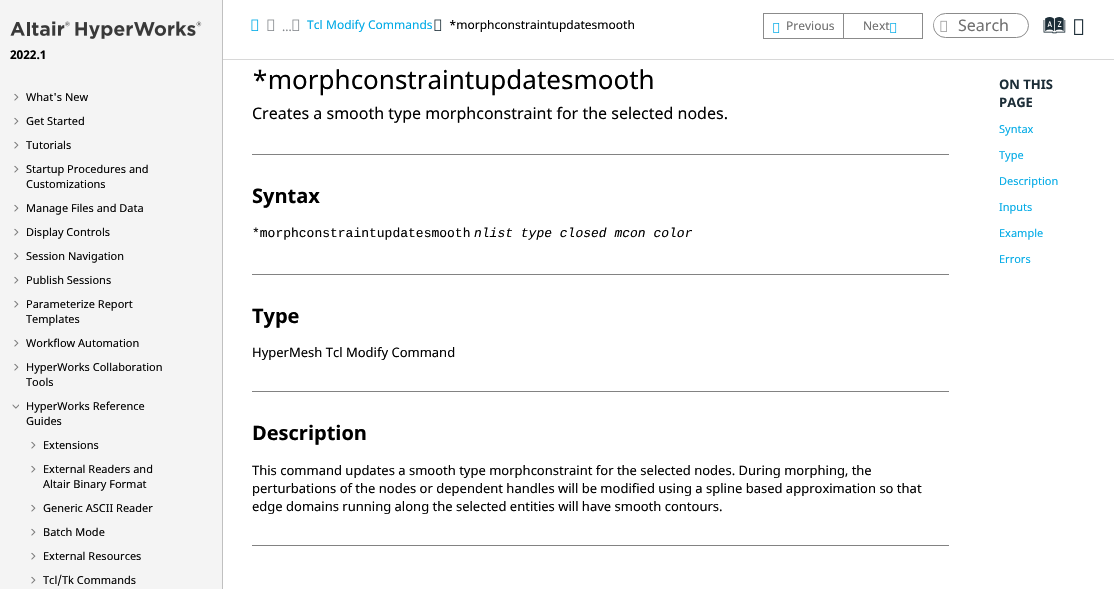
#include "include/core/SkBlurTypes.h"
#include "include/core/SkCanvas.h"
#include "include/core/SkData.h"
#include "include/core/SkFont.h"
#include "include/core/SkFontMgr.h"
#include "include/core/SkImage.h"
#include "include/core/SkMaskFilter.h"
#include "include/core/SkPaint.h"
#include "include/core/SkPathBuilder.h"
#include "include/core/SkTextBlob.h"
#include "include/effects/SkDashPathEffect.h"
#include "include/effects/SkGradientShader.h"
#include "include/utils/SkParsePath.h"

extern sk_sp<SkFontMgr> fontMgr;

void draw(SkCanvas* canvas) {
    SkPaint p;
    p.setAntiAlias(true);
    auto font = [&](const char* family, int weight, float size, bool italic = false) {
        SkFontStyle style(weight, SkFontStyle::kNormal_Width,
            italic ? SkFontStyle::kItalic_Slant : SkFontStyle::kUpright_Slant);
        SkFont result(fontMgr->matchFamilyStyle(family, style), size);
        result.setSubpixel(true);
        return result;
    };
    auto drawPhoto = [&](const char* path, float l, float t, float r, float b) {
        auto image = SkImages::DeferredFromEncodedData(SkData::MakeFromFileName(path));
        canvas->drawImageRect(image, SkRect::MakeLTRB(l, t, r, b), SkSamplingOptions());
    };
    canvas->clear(0xFFFFFFFF);
    p.setColor(0xFFF4F4F4);
    canvas->drawRect(SkRect::MakeLTRB(0, 0, 222, 589), p);
    p.setColor(0xFFC0C0C0);
    canvas->drawRect(SkRect::MakeLTRB(222, 0, 223, 589), p);
    drawPhoto("media/1.png", 10, 21, 202, 39);
    auto font1 = font("Noto Sans", 700, 12);
    p.setColor(0xFF000000);
    canvas->drawString("2022.1", 10, 59, font1, p);
    drawPhoto("media/2.png", 14, 93, 19, 101);
    auto font2 = font("Noto Sans", 400, 11);
    canvas->drawString("What's New", 26, 101, font2, p);
    drawPhoto("media/2.png", 14, 117, 19, 125);
    canvas->drawString("Get Started", 26, 125, font2, p);
    drawPhoto("media/2.png", 14, 141, 19, 149);
    canvas->drawString("Tutorials", 26, 149, font2, p);
    drawPhoto("media/2.png", 14, 165, 19, 173);
    canvas->drawString("Startup Procedures and", 26, 173, font2, p);
    canvas->drawString("Customizations", 26, 188, font2, p);
    drawPhoto("media/2.png", 14, 204, 19, 212);
    canvas->drawString("Manage Files and Data", 26, 212, font2, p);
    drawPhoto("media/2.png", 14, 228, 19, 236);
    canvas->drawString("Display Controls", 26, 236, font2, p);
    drawPhoto("media/2.png", 14, 252, 19, 260);
    canvas->drawString("Session Navigation", 26, 260, font2, p);
    drawPhoto("media/2.png", 14, 276, 19, 284);
    canvas->drawString("Publish Sessions", 26, 284, font2, p);
    drawPhoto("media/2.png", 14, 300, 19, 308);
    canvas->drawString("Parameterize Report", 26, 308, font2, p);
    canvas->drawString("Templates", 26, 323, font2, p);
    drawPhoto("media/2.png", 14, 339, 19, 347);
    canvas->drawString("Workflow Automation", 26, 347, font2, p);
    drawPhoto("media/2.png", 14, 363, 19, 371);
    canvas->drawString("HyperWorks Collaboration", 26, 371, font2, p);
    canvas->drawString("Tools", 26, 386, font2, p);
    drawPhoto("media/3.png", 12, 404, 19, 409);
    canvas->drawString("HyperWorks Reference", 26, 410, font2, p);
    canvas->drawString("Guides", 26, 425, font2, p);
    drawPhoto("media/2.png", 31, 441, 36, 449);
    canvas->drawString("Extensions", 43, 449, font2, p);
    drawPhoto("media/2.png", 31, 465, 36, 473);
    canvas->drawString("External Readers and", 43, 473, font2, p);
    canvas->drawString("Altair Binary Format", 43, 488, font2, p);
    drawPhoto("media/2.png", 31, 504, 36, 512);
    canvas->drawString("Generic ASCII Reader", 43, 512, font2, p);
    drawPhoto("media/2.png", 31, 528, 36, 536);
    canvas->drawString("Batch Mode", 43, 536, font2, p);
    drawPhoto("media/2.png", 31, 552, 36, 560);
    canvas->drawString("External Resources", 43, 560, font2, p);
    drawPhoto("media/2.png", 31, 576, 36, 584);
    canvas->drawString("Tcl/Tk Commands", 43, 584, font2, p);
    p.setColor(0xFFD8D8D8);
    canvas->drawRect(SkRect::MakeLTRB(223, 59, 1114, 60), p);
    drawPhoto("media/4.png", 251, 19, 259, 31);
    drawPhoto("media/5.png", 267, 19, 275, 31);
    auto font3 = font("Noto Sans", 400, 12);
    p.setColor(0xFF85898D);
    canvas->drawString("...", 282, 31, font3, p);
    drawPhoto("media/5.png", 292, 19, 300, 31);
    p.setColor(0xFF00AAE6);
    canvas->drawString("Tcl", 307, 29, font3, p);
    canvas->drawString("Modify Commands", 326, 29, font3, p);
    drawPhoto("media/6.png", 434, 19, 442, 31);
    p.setColor(0xFF000000);
    canvas->drawString("*morphconstraintupdatesmooth", 449, 29, font3, p);
    {
        const struct { float l, t, r, b; SkColor color; } items[] = {
            {763, 13, 843, 14, 0xFF8B8B8B},
            {763, 38, 843, 39, 0xFF8B8B8B},
            {763, 13, 764, 39, 0xFF8B8B8B},
        };
        for (auto [l, t, r, b, color] : items) {
            p.setColor(color);
            canvas->drawRect(SkRect::MakeLTRB(l, t, r, b), p);
        }
    }
    drawPhoto("media/7.png", 773, 23, 780, 33);
    p.setColor(0xFF707070);
    canvas->drawString("Previous", 786, 30, font3, p);
    p.setStyle(SkPaint::kStroke_Style);
    p.setStrokeWidth(1);
    p.setColor(0xFF8B8B8B);
    canvas->drawRect(SkRect::MakeLTRB(843.5f, 13.5f, 922.5f, 38.5f), p);
    p.setStyle(SkPaint::kFill_Style);
    p.setColor(0xFF707070);
    canvas->drawString("Next", 863, 30, font3, p);
    drawPhoto("media/7.png", 890, 23, 897, 33);
    p.setStyle(SkPaint::kStroke_Style);
    p.setColor(0xFF8B8B8B);
    canvas->drawRoundRect(SkRect::MakeLTRB(933.5f, 13.5f, 1028.5f, 37.5f), 12, 12, p);
    p.setStyle(SkPaint::kFill_Style);
    p.setColor(0xFFFFFFFF);
    canvas->drawRoundRect(SkRect::MakeLTRB(934, 15, 954, 34), 9.5f, 9.5f, p);
    drawPhoto("media/8.png", 940, 20, 947, 32);
    auto font4 = font("Noto Sans", 400, 16);
    p.setColor(0xFF707070);
    canvas->drawString("Search", 958, 31, font4, p);
    auto font5 = font("Oxygen", 400, 23);
    p.setColor(0xFF1D2E38);
    canvas->drawString("a", 1046, 36, font5, p);
    drawPhoto("media/9.png", 1074, 19, 1084, 35);
    auto font6 = font("Noto Sans", 400, 26);
    p.setColor(0xFF000000);
    canvas->drawString("*morphconstraintupdatesmooth", 252, 89, font6, p);
    canvas->drawString("Creates a smooth type morphconstraint for the selected nodes.", 252, 119, font4, p);
    p.setColor(0xFF828282);
    canvas->drawRect(SkRect::MakeLTRB(252, 154, 949, 155), p);
    auto font7 = font("Noto Sans", 700, 20);
    p.setColor(0xFF000000);
    canvas->drawString("Syntax", 252, 203, font7, p);
    auto font8 = font("Liberation Mono", 400, 13);
    canvas->drawString("*morphconstraintupdatesmooth", 252, 237, font8, p);
    auto font9 = font("Liberation Mono", 400, 13, true);
    canvas->drawString("nlist type closed mcon color", 474, 237, font9, p);
    p.setColor(0xFF828282);
    canvas->drawRect(SkRect::MakeLTRB(252, 274, 949, 275), p);
    p.setColor(0xFF000000);
    canvas->drawString("Type", 252, 323, font7, p);
    auto font10 = font("Noto Sans", 400, 13);
    canvas->drawString("HyperMesh Tcl Modify Command", 252, 357, font10, p);
    p.setColor(0xFF828282);
    canvas->drawRect(SkRect::MakeLTRB(252, 391, 949, 392), p);
    p.setColor(0xFF000000);
    canvas->drawString("Description", 252, 440, font7, p);
    {
        const struct { const char* s; float x, y; } items[] = {
            {"This command updates a smooth type morphconstraint for the selected nodes. During morphing, the", 252, 475},
            {"perturbations of the nodes or dependent handles will be modified using a spline based approximation so that", 252, 493},
            {"edge domains running along the selected entities will have smooth contours.", 252, 511},
        };
        for (auto [s, x, y] : items) {
            canvas->drawString(s, x, y, font10, p);
        }
    }
    p.setColor(0xFF828282);
    canvas->drawRect(SkRect::MakeLTRB(252, 545, 949, 546), p);
    auto font11 = font("Noto Sans", 700, 13);
    p.setColor(0xFF1D2E38);
    canvas->drawString("ON THIS", 999, 89, font11, p);
    canvas->drawString("PAGE", 999, 107, font11, p);
    p.setColor(0xFF00AAE6);
    {
        const struct { const char* s; float x, y; } items[] = {
            {"Syntax", 999, 133},
            {"Type", 999, 159},
            {"Description", 999, 185},
            {"Inputs", 999, 211},
            {"Example", 999, 237},
            {"Errors", 999, 263},
        };
        for (auto [s, x, y] : items) {
            canvas->drawString(s, x, y, font2, p);
        }
    }
}
